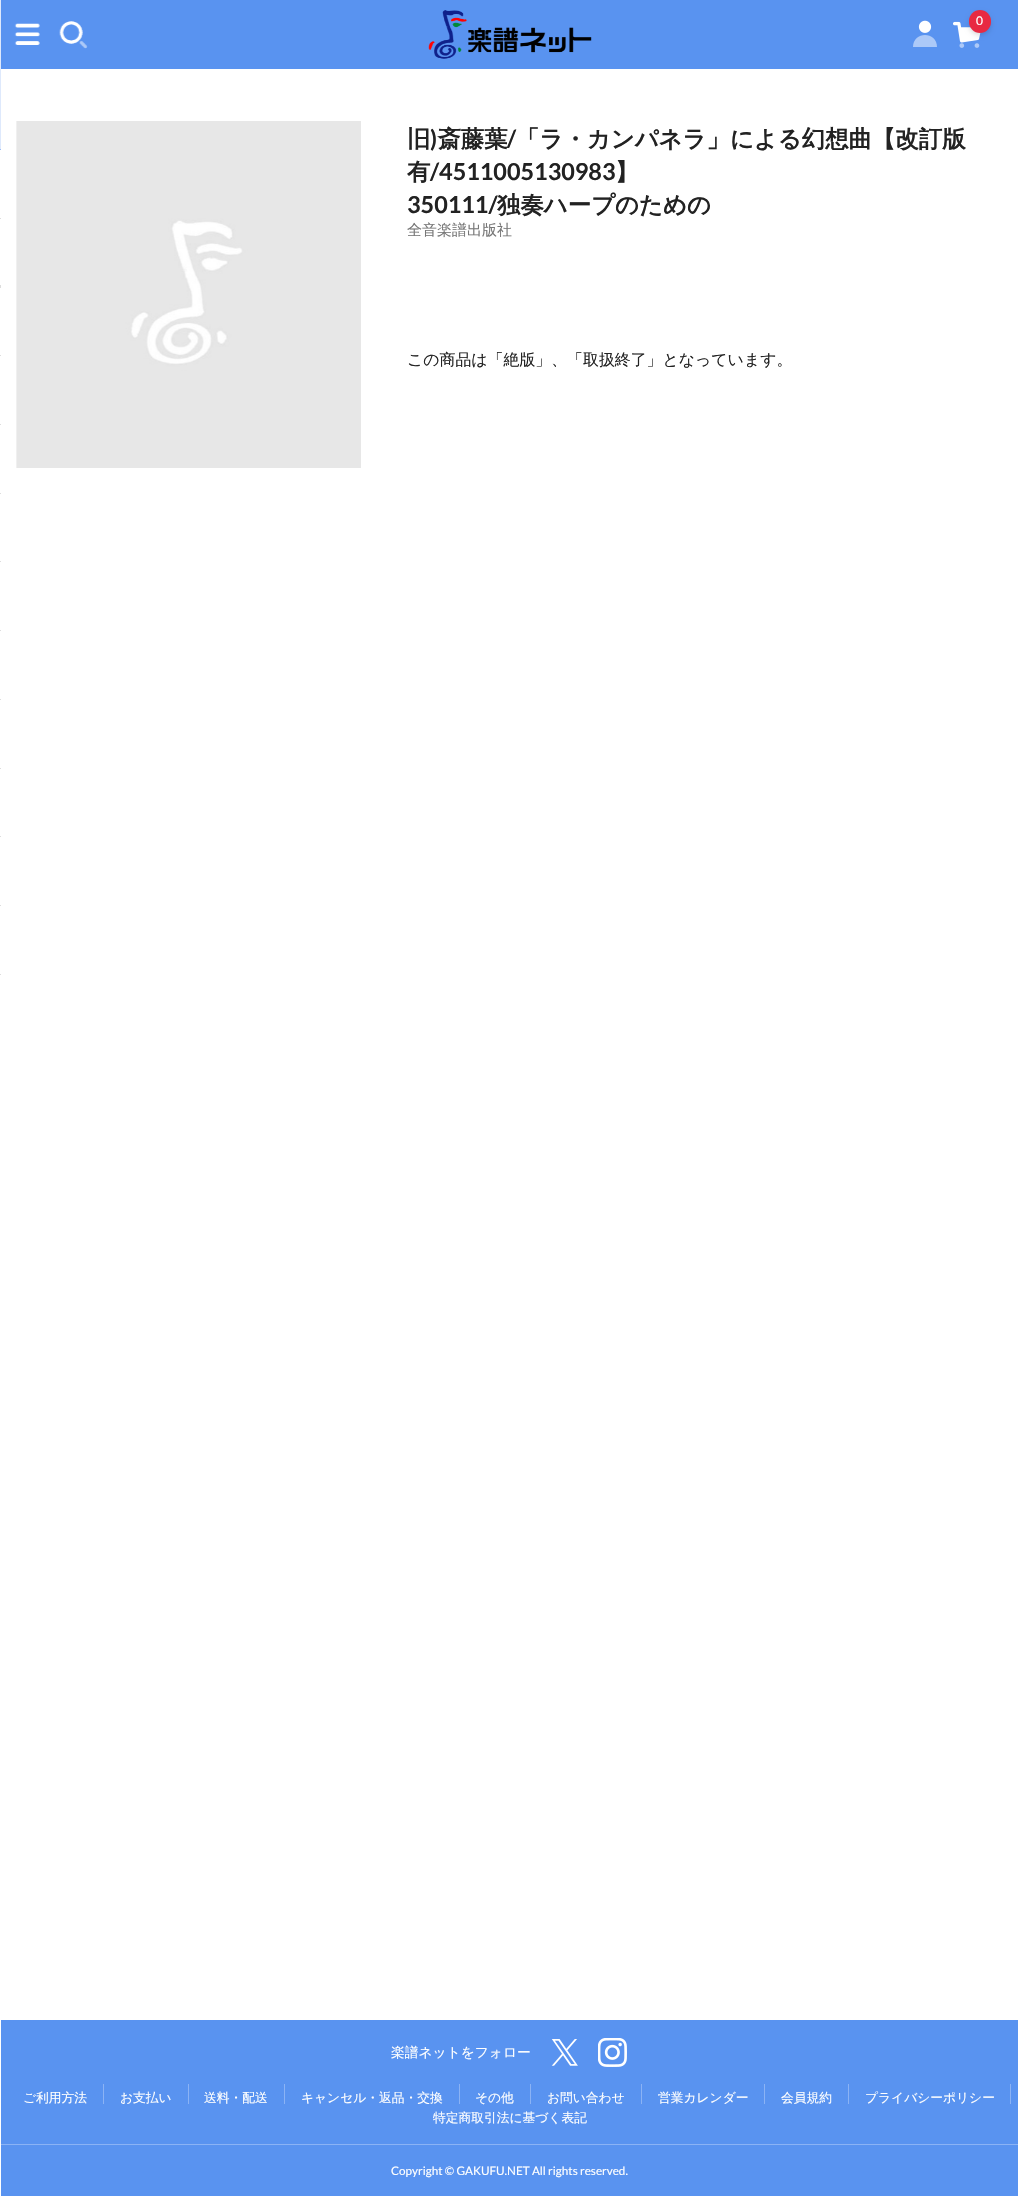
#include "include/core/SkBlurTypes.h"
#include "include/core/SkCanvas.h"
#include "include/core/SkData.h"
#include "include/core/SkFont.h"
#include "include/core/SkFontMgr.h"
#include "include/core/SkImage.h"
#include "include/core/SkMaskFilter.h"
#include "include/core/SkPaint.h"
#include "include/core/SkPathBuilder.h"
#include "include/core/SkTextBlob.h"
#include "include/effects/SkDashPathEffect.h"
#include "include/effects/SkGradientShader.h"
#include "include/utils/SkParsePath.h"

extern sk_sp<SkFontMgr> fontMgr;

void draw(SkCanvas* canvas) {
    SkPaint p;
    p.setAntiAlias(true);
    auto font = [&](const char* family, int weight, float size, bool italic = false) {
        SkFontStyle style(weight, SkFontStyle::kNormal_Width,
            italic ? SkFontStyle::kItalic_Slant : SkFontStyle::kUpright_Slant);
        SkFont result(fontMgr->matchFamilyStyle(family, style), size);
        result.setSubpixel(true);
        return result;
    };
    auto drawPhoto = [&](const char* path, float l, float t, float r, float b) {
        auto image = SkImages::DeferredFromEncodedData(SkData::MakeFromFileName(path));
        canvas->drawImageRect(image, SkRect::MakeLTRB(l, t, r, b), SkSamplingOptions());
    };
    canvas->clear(0xFFFFFFFF);
    {
        const struct { float l, t, r, b; SkColor color; } items[] = {
            {1, 0, 1018, 69, 0xFF5993F0},
            {1, 2020, 1018, 2196, 0xFF5993F0},
            {0, 2144, 1018, 2145, 0xFF8BB3F5},
            {0, 2144, 1, 2145, 0xFFFFFFFF},
            {0, 0, 1, 150, 0xFFDEE9FC},
            {0, 149, 1, 150, 0xFF9CBEF6},
        };
        for (auto [l, t, r, b, color] : items) {
            p.setColor(color);
            canvas->drawRect(SkRect::MakeLTRB(l, t, r, b), p);
        }
    }
    drawPhoto("media/1.png", 14, 23, 40, 45);
    {
        const struct { float l, t, r, b; SkColor color; } items[] = {
            {0, 218, 1, 219, 0xFFDDDDDD},
            {0, 285, 1, 288, 0xFFDDDDDD},
            {0, 355, 1, 356, 0xFFDDDDDD},
            {0, 424, 1, 425, 0xFFDDDDDD},
            {0, 493, 1, 494, 0xFFDDDDDD},
            {0, 561, 1, 562, 0xFFDDDDDD},
            {0, 630, 1, 631, 0xFFDDDDDD},
            {0, 699, 1, 700, 0xFFDDDDDD},
            {0, 768, 1, 769, 0xFFDDDDDD},
            {0, 836, 1, 837, 0xFFDDDDDD},
            {0, 905, 1, 906, 0xFFDDDDDD},
            {0, 974, 1, 975, 0xFFDDDDDD},
        };
        for (auto [l, t, r, b, color] : items) {
            p.setColor(color);
            canvas->drawRect(SkRect::MakeLTRB(l, t, r, b), p);
        }
    }
    drawPhoto("media/2.png", 59, 21, 88, 49);
    drawPhoto("media/3.png", 428, 10, 592, 59);
    drawPhoto("media/4.png", 918, 20, 932, 33);
    p.setColor(0xFFACC9F8);
    canvas->drawPath(SkPathBuilder().moveTo(913, 47).cubicTo(913, 31, 937, 31, 937, 47).close().detach(), p);
    drawPhoto("media/5.png", 953, 21, 981, 43);
    p.setColor(0x26000000);
    p.setMaskFilter(SkMaskFilter::MakeBlur(kNormal_SkBlurStyle, 2.5f));
    canvas->drawRoundRect(SkRect::MakeLTRB(969, 13, 991, 35), 11, 11, p);
    p.setMaskFilter(nullptr);
    p.setColor(0xFFE82942);
    canvas->drawRoundRect(SkRect::MakeLTRB(969, 10, 991, 33), 11, 11, p);
    auto font1 = font("Lato", 400, 12);
    p.setColor(0xFFFFFFFF);
    canvas->drawString("0", 976, 25, font1, p);
    drawPhoto("media/6.png", 959, 43, 965, 48);
    drawPhoto("media/7.png", 974, 43, 980, 48);
    drawPhoto("media/8.png", 16, 121, 361, 468);
    auto font2 = font("WenQuanYi Zen Hei", 700, 23.4f);
    p.setColor(0xFF222222);
    canvas->drawString("旧 斎藤葉", 407, 147, font2, p);
    canvas->drawString("「ラ・カンパネラ」による幻想曲【改訂版", 516, 147, font2, p);
    auto font3 = font("Lato", 700, 23.4f);
    canvas->drawString(")", 430, 147, font3, p);
    canvas->drawString("/", 507, 147, font3, p);
    canvas->drawString("有", 407, 180, font2, p);
    canvas->drawString("/4511005130983", 430, 180, font3, p);
    canvas->drawString("】", 615, 180, font2, p);
    canvas->drawString("350111/", 407, 213, font3, p);
    canvas->drawString("独奏ハープのための", 497, 213, font2, p);
    auto font4 = font("WenQuanYi Zen Hei", 500, 15);
    p.setColor(0xFF777777);
    canvas->drawString("全音楽譜出版社", 407, 235, font4, p);
    auto font5 = font("WenQuanYi Zen Hei", 500, 15.9f);
    p.setColor(0xFF222222);
    canvas->drawString("この商品は「絶版」、「取扱終了」となっています。", 407, 365, font5, p);
    auto font6 = font("WenQuanYi Zen Hei", 500, 13.75f);
    p.setColor(0xFFFFFFFF);
    canvas->drawString("楽譜ネットをフォロー", 391, 2057, font6, p);
    drawPhoto("media/9.png", 551, 2039, 578, 2066);
    drawPhoto("media/10.png", 598, 2038, 627, 2067);
    p.setColor(0xFF8BB3F5);
    canvas->drawRect(SkRect::MakeLTRB(103, 2084, 104, 2104), p);
    auto font7 = font("WenQuanYi Zen Hei", 500, 12.75f);
    p.setColor(0xFFFFFFFF);
    canvas->drawString("ご利用方法", 23, 2102, font7, p);
    p.setColor(0xFF8BB3F5);
    canvas->drawRect(SkRect::MakeLTRB(188, 2084, 189, 2104), p);
    p.setColor(0xFFFFFFFF);
    canvas->drawString("お支払い", 120, 2102, font7, p);
    p.setColor(0xFF8BB3F5);
    canvas->drawRect(SkRect::MakeLTRB(284, 2084, 285, 2104), p);
    p.setColor(0xFFFFFFFF);
    canvas->drawString("送料・配送", 204, 2102, font7, p);
    p.setColor(0xFF8BB3F5);
    canvas->drawRect(SkRect::MakeLTRB(459, 2084, 460, 2104), p);
    p.setColor(0xFFFFFFFF);
    canvas->drawString("キャンセル・返品・交換", 301, 2102, font7, p);
    p.setColor(0xFF8BB3F5);
    canvas->drawRect(SkRect::MakeLTRB(530, 2084, 531, 2104), p);
    p.setColor(0xFFFFFFFF);
    canvas->drawString("その他", 475, 2102, font7, p);
    p.setColor(0xFF8BB3F5);
    canvas->drawRect(SkRect::MakeLTRB(641, 2084, 642, 2104), p);
    p.setColor(0xFFFFFFFF);
    canvas->drawString("お問い合わせ", 547, 2102, font7, p);
    p.setColor(0xFF8BB3F5);
    canvas->drawRect(SkRect::MakeLTRB(764, 2084, 765, 2104), p);
    p.setColor(0xFFFFFFFF);
    canvas->drawString("営業カレンダー", 658, 2102, font7, p);
    p.setColor(0xFF8BB3F5);
    canvas->drawRect(SkRect::MakeLTRB(848, 2084, 849, 2104), p);
    p.setColor(0xFFFFFFFF);
    canvas->drawString("会員規約", 781, 2102, font7, p);
    p.setColor(0xFF8BB3F5);
    canvas->drawRect(SkRect::MakeLTRB(1010, 2084, 1011, 2104), p);
    p.setColor(0xFFFFFFFF);
    canvas->drawString("プライバシーポリシー", 865, 2102, font7, p);
    canvas->drawString("特定商取引法に基づく表記", 433, 2122, font7, p);
    auto font8 = font("Lato", 400, 11.7f);
    canvas->drawString("Copyright © GAKUFU.NET All rights reserved.", 391, 2175, font8, p);
}
